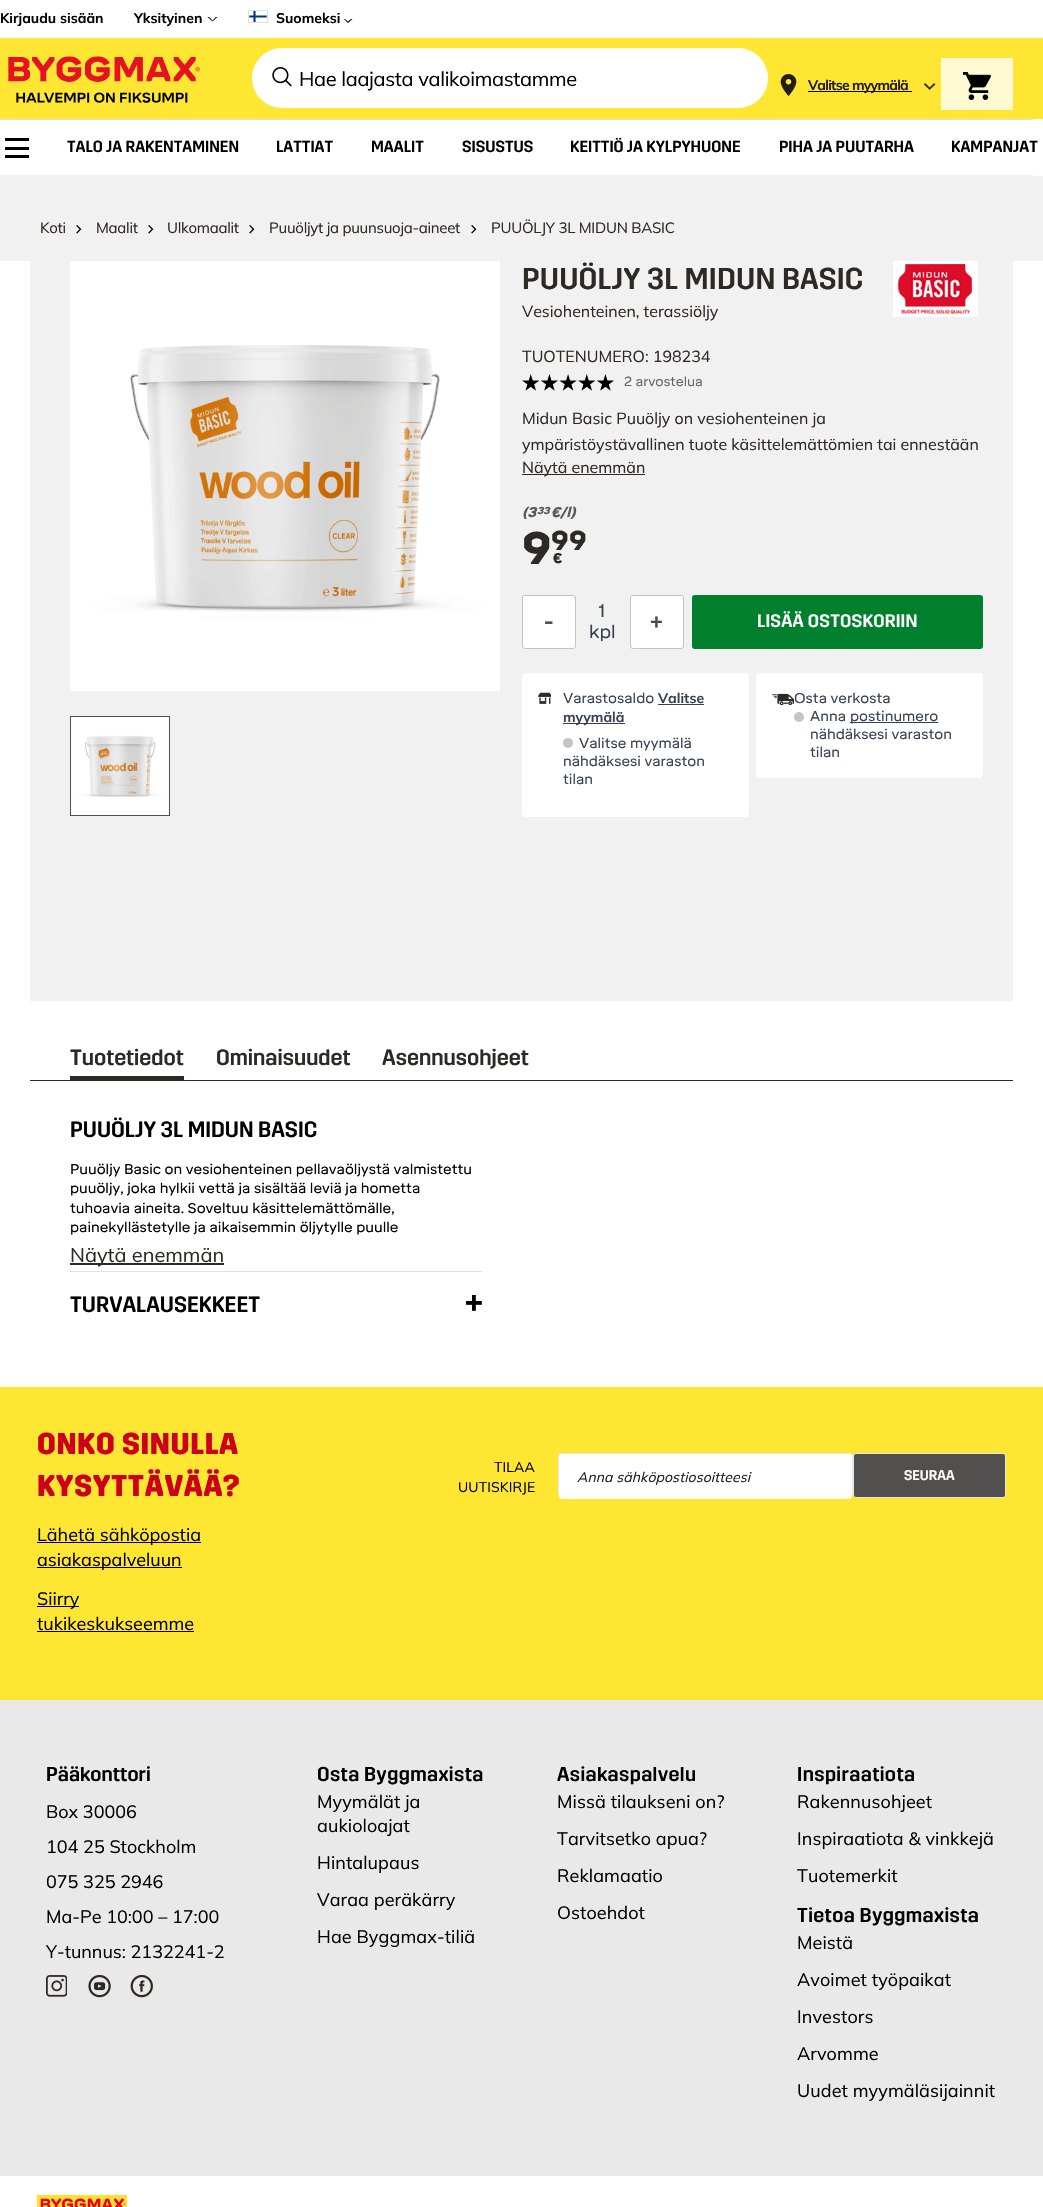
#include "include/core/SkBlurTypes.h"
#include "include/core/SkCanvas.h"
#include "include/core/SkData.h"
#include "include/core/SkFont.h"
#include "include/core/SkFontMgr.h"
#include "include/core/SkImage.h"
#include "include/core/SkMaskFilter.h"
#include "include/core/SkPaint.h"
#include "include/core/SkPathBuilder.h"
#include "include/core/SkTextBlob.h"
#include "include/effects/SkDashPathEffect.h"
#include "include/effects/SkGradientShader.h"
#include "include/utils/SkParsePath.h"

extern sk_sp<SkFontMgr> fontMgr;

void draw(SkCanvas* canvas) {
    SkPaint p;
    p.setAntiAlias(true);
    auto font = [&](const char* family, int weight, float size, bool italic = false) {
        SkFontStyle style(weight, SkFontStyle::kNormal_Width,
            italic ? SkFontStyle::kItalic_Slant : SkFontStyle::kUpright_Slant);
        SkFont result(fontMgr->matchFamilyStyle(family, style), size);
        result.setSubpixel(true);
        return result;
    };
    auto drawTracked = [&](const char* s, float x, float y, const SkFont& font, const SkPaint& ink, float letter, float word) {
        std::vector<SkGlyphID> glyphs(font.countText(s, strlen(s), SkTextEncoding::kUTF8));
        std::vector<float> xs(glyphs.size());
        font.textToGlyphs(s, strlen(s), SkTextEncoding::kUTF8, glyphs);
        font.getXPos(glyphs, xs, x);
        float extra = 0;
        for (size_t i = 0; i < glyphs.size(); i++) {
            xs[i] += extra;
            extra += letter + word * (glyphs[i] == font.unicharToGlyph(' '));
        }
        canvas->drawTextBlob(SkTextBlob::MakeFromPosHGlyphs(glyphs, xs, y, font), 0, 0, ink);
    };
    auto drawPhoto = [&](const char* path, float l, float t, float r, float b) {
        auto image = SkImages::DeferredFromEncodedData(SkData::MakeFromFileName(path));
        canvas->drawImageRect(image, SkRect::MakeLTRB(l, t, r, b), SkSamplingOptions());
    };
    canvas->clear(0xFFFFFFFF);
    auto font1 = font("Mulish", 700, 14);
    p.setColor(0xFF000000);
    canvas->drawString("Kirjaudu sisään", 0, 23, font1, p);
    canvas->drawString("Yksityinen", 134, 23, font1, p);
    canvas->drawPath(SkPathBuilder().moveTo(217.5f, 17).lineTo(212.5f, 21.5f).lineTo(212.5f, 20.5f).lineTo(216, 17).close().detach(), p);
    canvas->drawPath(SkPathBuilder().moveTo(212.5f, 21.5f).lineTo(207.5f, 17).lineTo(209, 17).lineTo(212.5f, 20.5f).close().detach(), p);
    drawPhoto("media/1.png", 249, 11, 267, 22);
    p.setStyle(SkPaint::kStroke_Style);
    p.setStrokeWidth(1);
    p.setColor(0xFFE0E0E0);
    canvas->drawRect(SkRect::MakeLTRB(248.5f, 10.5f, 267.5f, 22.5f), p);
    p.setStyle(SkPaint::kFill_Style);
    p.setColor(0xFF000000);
    canvas->drawString("Suomeksi", 276, 23, font1, p);
    canvas->drawPath(SkPathBuilder().moveTo(352.5f, 19).lineTo(348, 23).lineTo(348, 21.5f).lineTo(351, 19).close().moveTo(348, 23).lineTo(344, 19).lineTo(345, 19).lineTo(348, 21.5f).close().detach(), p);
    p.setColor(0xFFFFE632);
    canvas->drawRect(SkRect::MakeLTRB(0, 38, 1043, 119), p);
    drawPhoto("media/2.png", 8, 56, 200, 103);
    p.setColor(0xFFFFFFFF);
    canvas->drawRoundRect(SkRect::MakeLTRB(252, 48, 768, 108), 30, 30, p);
    drawPhoto("media/3.png", 272, 67, 292, 87);
    auto font2 = font("Mulish", 400, 20);
    p.setColor(0xFF000000);
    drawTracked("Hae laajasta valikoimastamme", 299, 86, font2, p, -0.3f, 0);
    drawPhoto("media/4.png", 780, 74, 797, 96);
    canvas->drawRect(SkRect::MakeLTRB(808, 91, 912, 92), p);
    p.setColor(0xFF231C1C);
    drawTracked("Valitse myymälä", 808, 90, font1, p, -0.75f, 0);
    drawPhoto("media/5.png", 923, 83, 936, 90);
    p.setColor(0xFFFFFAD3);
    canvas->drawRect(SkRect::MakeLTRB(941, 58, 1013, 110), p);
    drawPhoto("media/6.png", 963, 72, 991, 100);
    {
        const struct { float l, t, r, b; SkColor color; } items[] = {
            {0, 119, 1033, 120, 0xFFE0E0E0},
            {5, 138, 29, 141, 0xFF000000},
            {5, 155, 29, 158, 0xFF000000},
            {5, 147, 29, 150, 0xFF000000},
        };
        for (auto [l, t, r, b, color] : items) {
            p.setColor(color);
            canvas->drawRect(SkRect::MakeLTRB(l, t, r, b), p);
        }
    }
    auto font3 = font("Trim", 500, 16);
    {
        const struct { const char* s; float x, y; } items[] = {
            {"TALO JA RAKENTAMINEN", 67, 152},
            {"LATTIAT", 276, 152},
            {"MAALIT", 371, 152},
            {"SISUSTUS", 462, 152},
            {"KEITTIÖ JA KYLPYHUONE", 570, 152},
            {"PIHA JA PUUTARHA", 779, 152},
            {"KAMPANJAT", 951, 152},
        };
        for (auto [s, x, y] : items) {
            canvas->drawString(s, x, y, font3, p);
        }
    }
    p.setColor(0xFFF1F1F1);
    canvas->drawRect(SkRect::MakeLTRB(0, 175, 1033, 176), p);
    canvas->drawRect(SkRect::MakeLTRB(0, 176, 1043, 261), p);
    auto font4 = font("Mulish", 400, 15);
    p.setColor(0xFF2D2A25);
    drawTracked("Koti", 40, 233, font4, p, -0.25f, 0);
    drawPhoto("media/7.png", 76, 225, 82, 234);
    drawTracked("Maalit", 96, 233, font4, p, -0.25f, 0);
    drawPhoto("media/7.png", 148, 225, 154, 234);
    drawTracked("Ulkomaalit", 167, 233, font4, p, -0.25f, 0);
    drawPhoto("media/7.png", 249, 225, 255, 234);
    drawTracked("Puuöljyt ja puunsuoja-aineet", 269, 233, font4, p, -0.25f, 0);
    drawPhoto("media/7.png", 471, 225, 477, 234);
    drawTracked("PUUÖLJY 3L MIDUN BASIC", 491, 233, font4, p, -0.25f, 0);
    p.setColor(0xFFF1F1F1);
    canvas->drawRect(SkRect::MakeLTRB(30, 261, 1013, 1001), p);
    drawPhoto("media/8.png", 70, 261, 500, 691);
    p.setStyle(SkPaint::kStroke_Style);
    p.setColor(0xFF52504E);
    canvas->drawRect(SkRect::MakeLTRB(70.5f, 716.5f, 169.5f, 815.5f), p);
    drawPhoto("media/9.png", 71, 717, 169, 815);
    auto font5 = font("Trim", 500, 30);
    p.setStyle(SkPaint::kFill_Style);
    p.setColor(0xFF2D2A25);
    drawTracked("PUUÖLJY 3L MIDUN BASIC", 522, 289, font5, p, 0.2f, 0);
    auto font6 = font("Mulish", 400, 16);
    canvas->drawString("Vesiohenteinen, terassiöljy", 522, 317, font6, p);
    canvas->drawString("TUOTENUMERO: 198234", 522, 362, font6, p);
    drawPhoto("media/10.png", 893, 261, 978, 317);
    drawPhoto("media/11.png", 522, 374, 614, 391);
    auto font7 = font("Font", 400, 13);
    p.setColor(0xFF666666);
    canvas->drawString("2 arvostelua", 624, 386, font7, p);
    p.setColor(0xFF2D2A25);
    canvas->drawString("Midun Basic Puuöljy on vesiohenteinen ja", 522, 424, font6, p);
    canvas->drawString("ympäristöystävallinen tuote käsittelemättömien tai ennestään", 522, 450, font6, p);
    canvas->drawRect(SkRect::MakeLTRB(522, 474, 645, 475), p);
    canvas->drawString("Näytä enemmän", 522, 473, font6, p);
    auto font8 = font("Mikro", 900, 14, true);
    p.setColor(0xFF595959);
    canvas->drawString("(3", 522, 517, font8, p);
    auto font9 = font("Mikro", 900, 10, true);
    canvas->drawString("33", 537, 514, font9, p);
    canvas->drawString("€/l)", 551, 517, font8, p);
    auto font10 = font("Mikro", 900, 45);
    p.setColor(0xFF2D2A25);
    drawTracked("9", 522, 564, font10, p, 0.2f, 0);
    auto font11 = font("Mikro", 900, 27);
    drawTracked("99", 551, 550, font11, p, 0.2f, 0);
    auto font12 = font("Mikro", 900, 14);
    drawTracked("€", 553, 563, font12, p, 0.2f, 0);
    p.setColor(0xFFFFFFFF);
    canvas->drawRoundRect(SkRect::MakeLTRB(522.5f, 595.5f, 575.5f, 648.5f), 2.5f, 2.5f, p);
    p.setStyle(SkPaint::kStroke_Style);
    p.setColor(0xFFC4C4C4);
    canvas->drawRoundRect(SkRect::MakeLTRB(522.5f, 595.5f, 575.5f, 648.5f), 2.5f, 2.5f, p);
    auto font13 = font("Font", 700, 20);
    p.setStyle(SkPaint::kFill_Style);
    p.setColor(0xFF4C4C4C);
    canvas->drawString("-", 544, 629, font13, p);
    auto font14 = font("Font", 400, 18);
    p.setColor(0xFF374151);
    canvas->drawString("1", 598, 617, font14, p);
    canvas->drawString("kpl", 589, 638, font14, p);
    p.setColor(0xFFFFFFFF);
    canvas->drawRoundRect(SkRect::MakeLTRB(630.5f, 595.5f, 683.5f, 648.5f), 2.5f, 2.5f, p);
    p.setStyle(SkPaint::kStroke_Style);
    p.setColor(0xFFC4C4C4);
    canvas->drawRoundRect(SkRect::MakeLTRB(630.5f, 595.5f, 683.5f, 648.5f), 2.5f, 2.5f, p);
    p.setStyle(SkPaint::kFill_Style);
    p.setColor(0xFF4C4C4C);
    canvas->drawString("+", 650, 629, font13, p);
    p.setColor(0xFF00802D);
    canvas->drawRoundRect(SkRect::MakeLTRB(692, 595, 983, 649), 3, 3, p);
    auto font15 = font("Trim", 500, 18);
    p.setColor(0xFFFFFFFF);
    drawTracked("LISÄÄ OSTOSKORIIN", 757, 627, font15, p, 0.2f, 0);
    canvas->drawRoundRect(SkRect::MakeLTRB(522, 673, 749, 817), 4, 4, p);
    drawPhoto("media/12.png", 538, 692, 551, 704);
    auto font16 = font("Font", 400, 14);
    p.setColor(0xFF374151);
    canvas->drawString("Varastosaldo", 563, 703, font16, p);
    canvas->drawString("Valitse", 658, 703, font1, p);
    canvas->drawRect(SkRect::MakeLTRB(658, 704, 704, 705), p);
    canvas->drawRect(SkRect::MakeLTRB(563, 723, 625, 724), p);
    canvas->drawString("myymälä", 563, 722, font1, p);
    p.setColor(0xFFC4C4C4);
    canvas->drawCircle(568, 743, 5, p);
    p.setColor(0xFF374151);
    {
        const struct { const char* s; float x, y; } items[] = {
            {"Valitse myymälä", 579, 748},
            {"nähdäksesi varaston", 563, 766},
            {"tilan", 563, 784},
        };
        for (auto [s, x, y] : items) {
            canvas->drawString(s, x, y, font16, p);
        }
    }
    p.setColor(0xFFFFFFFF);
    canvas->drawRoundRect(SkRect::MakeLTRB(756, 673, 983, 778), 4, 4, p);
    drawPhoto("media/13.png", 772, 693, 794, 706);
    p.setColor(0xFF374151);
    canvas->drawString("Osta verkosta", 794, 703, font16, p);
    p.setColor(0xFFC4C4C4);
    canvas->drawCircle(799, 717, 5, p);
    p.setColor(0xFF374151);
    canvas->drawString("Anna", 810, 721, font16, p);
    canvas->drawRect(SkRect::MakeLTRB(850, 722, 938, 723), p);
    {
        const struct { const char* s; float x, y; } items[] = {
            {"postinumero", 850, 721},
            {"nähdäksesi varaston", 810, 739},
            {"tilan", 810, 757},
        };
        for (auto [s, x, y] : items) {
            canvas->drawString(s, x, y, font16, p);
        }
    }
    p.setColor(0xFF2D2A25);
    canvas->drawRect(SkRect::MakeLTRB(30, 1080, 1013, 1081), p);
    canvas->drawRect(SkRect::MakeLTRB(70, 1076, 184, 1080), p);
    auto font17 = font("Trim", 500, 22);
    {
        const struct { const char* s; float x, y; } items[] = {
            {"Tuotetiedot", 70, 1065},
            {"Ominaisuudet", 216, 1065},
            {"Asennusohjeet", 382, 1065},
        };
        for (auto [s, x, y] : items) {
            canvas->drawString(s, x, y, font17, p);
        }
    }
    p.setColor(0xFF000000);
    canvas->drawString("PUUÖLJY 3L MIDUN BASIC", 70, 1137, font17, p);
    {
        const struct { const char* s; float x, y; } items[] = {
            {"Puuöljy Basic on vesiohenteinen pellavaöljystä valmistettu", 70, 1174},
            {"puuöljy, joka hylkii vettä ja sisältää leviä ja hometta", 70, 1193},
            {"tuhoavia aineita. Soveltuu käsittelemättömälle,", 70, 1213},
            {"painekyllästetylle ja aikaisemmin öljytylle puulle", 70, 1232},
        };
        for (auto [s, x, y] : items) {
            canvas->drawString(s, x, y, font16, p);
        }
    }
    p.setColor(0xFF2D2A25);
    canvas->drawRect(SkRect::MakeLTRB(70, 1263, 224, 1265), p);
    canvas->drawString("Näytä enemmän", 70, 1262, font2, p);
    p.setColor(0xFFE0E0E0);
    canvas->drawRect(SkRect::MakeLTRB(70, 1271, 482, 1272), p);
    p.setColor(0xFF000000);
    canvas->drawString("TURVALAUSEKKEET", 70, 1312, font17, p);
    auto font18 = font("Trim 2", 700, 29);
    canvas->drawString("+", 465, 1313, font18, p);
    p.setColor(0xFFFFE632);
    canvas->drawRect(SkRect::MakeLTRB(0, 1387, 1043, 1700), p);
    auto font19 = font("Trim", 700, 30);
    p.setColor(0xFFCC001B);
    drawTracked("ONKO SINULLA", 37, 1454, font19, p, 0.6f, 0);
    drawTracked("KYSYTTÄVÄÄ?", 37, 1496, font19, p, 0.6f, 0);
    p.setColor(0xFF000000);
    canvas->drawRect(SkRect::MakeLTRB(37, 1542, 201, 1543), p);
    auto font20 = font("Mulish", 400, 18);
    canvas->drawString("Lähetä sähköpostia", 37, 1541, font20, p);
    canvas->drawRect(SkRect::MakeLTRB(37, 1567, 182, 1568), p);
    canvas->drawString("asiakaspalveluun", 37, 1566, font20, p);
    canvas->drawRect(SkRect::MakeLTRB(37, 1606, 79, 1607), p);
    canvas->drawString("Siirry", 37, 1605, font20, p);
    canvas->drawString("tukikeskukseemme", 37, 1630, font20, p);
    canvas->drawRect(SkRect::MakeLTRB(37, 1631, 194, 1632), p);
    auto font21 = font("Mulish", 400, 14);
    drawTracked("TILAA", 494, 1472, font21, p, 0.1f, 0);
    drawTracked("UUTISKIRJE", 458, 1492, font21, p, 0.1f, 0);
    p.setColor(0xFFFFFFFF);
    canvas->drawRoundRect(SkRect::MakeLTRB(558.5f, 1453.5f, 852.5f, 1495.5f), 2.5f, 2.5f, p);
    p.setStyle(SkPaint::kStroke_Style);
    p.setColor(0xFFE5E7EB);
    canvas->drawRoundRect(SkRect::MakeLTRB(558.5f, 1453.5f, 852.5f, 1495.5f), 2.5f, 2.5f, p);
    p.setStyle(SkPaint::kFill_Style);
    p.setColor(0xFFFFFFFF);
    canvas->drawRoundRect(SkRect::MakeLTRB(559, 1454, 852, 1499), 3, 3, p);
    auto font22 = font("Mulish", 400, 14, true);
    p.setColor(0xFF231C1C);
    drawTracked("Anna sähköpostiosoitteesi", 577, 1482, font22, p, 0.1f, 0);
    p.setColor(0xFF52504E);
    canvas->drawRoundRect(SkRect::MakeLTRB(853.5f, 1453.5f, 1005.5f, 1497.5f), 2.5f, 2.5f, p);
    p.setStyle(SkPaint::kStroke_Style);
    p.setColor(0xFFE5E7EB);
    canvas->drawRoundRect(SkRect::MakeLTRB(853.5f, 1453.5f, 1005.5f, 1497.5f), 2.5f, 2.5f, p);
    auto font23 = font("Trim", 500, 14);
    p.setStyle(SkPaint::kFill_Style);
    p.setColor(0xFFFFFFFF);
    canvas->drawString("SEURAA", 904, 1480, font23, p);
    p.setColor(0xFFE9E9E9);
    canvas->drawRect(SkRect::MakeLTRB(0, 1700, 1043, 2176), p);
    auto font24 = font("Trim", 500, 20);
    p.setColor(0xFF000000);
    drawTracked("Pääkonttori", 46, 1781, font24, p, 0.1f, 0);
    {
        const struct { const char* s; float x, y; } items[] = {
            {"Box 30006", 46, 1818},
            {"104 25 Stockholm", 46, 1853},
            {"075 325 2946", 46, 1888},
            {"Ma-Pe 10:00 – 17:00", 46, 1923},
            {"Y-tunnus: 2132241-2", 46, 1958},
        };
        for (auto [s, x, y] : items) {
            canvas->drawString(s, x, y, font20, p);
        }
    }
    drawPhoto("media/14.png", 46, 1975, 67, 1997);
    drawPhoto("media/15.png", 88, 1974, 111, 1998);
    drawPhoto("media/16.png", 130, 1974, 153, 1998);
    drawTracked("Osta Byggmaxista", 317, 1781, font24, p, 0.4f, 0);
    {
        const struct { const char* s; float x, y; } items[] = {
            {"Myymälät ja", 317, 1808},
            {"aukioloajat", 317, 1832},
            {"Hintalupaus", 317, 1869},
            {"Varaa peräkärry", 317, 1906},
            {"Hae Byggmax-tiliä", 317, 1943},
        };
        for (auto [s, x, y] : items) {
            drawTracked(s, x, y, font20, p, 0.1f, 0);
        }
    }
    drawTracked("Asiakaspalvelu", 557, 1781, font24, p, 0.4f, 0);
    {
        const struct { const char* s; float x, y; } items[] = {
            {"Missä tilaukseni on?", 557, 1808},
            {"Tarvitsetko apua?", 557, 1845},
            {"Reklamaatio", 557, 1882},
            {"Ostoehdot", 557, 1919},
        };
        for (auto [s, x, y] : items) {
            drawTracked(s, x, y, font20, p, 0.1f, 0);
        }
    }
    drawTracked("Inspiraatiota", 797, 1781, font24, p, 0.4f, 0);
    {
        const struct { const char* s; float x, y; } items[] = {
            {"Rakennusohjeet", 797, 1808},
            {"Inspiraatiota & vinkkejä", 797, 1845},
            {"Tuotemerkit", 797, 1882},
        };
        for (auto [s, x, y] : items) {
            drawTracked(s, x, y, font20, p, 0.1f, 0);
        }
    }
    drawTracked("Tietoa Byggmaxista", 797, 1922, font24, p, 0.4f, 0);
    {
        const struct { const char* s; float x, y; } items[] = {
            {"Meistä", 797, 1949},
            {"Avoimet työpaikat", 797, 1986},
            {"Investors", 797, 2023},
            {"Arvomme", 797, 2060},
            {"Uudet myymäläsijainnit", 797, 2097},
        };
        for (auto [s, x, y] : items) {
            drawTracked(s, x, y, font20, p, 0.1f, 0);
        }
    }
    drawPhoto("media/17.png", 37, 2195, 127, 2207);
}
